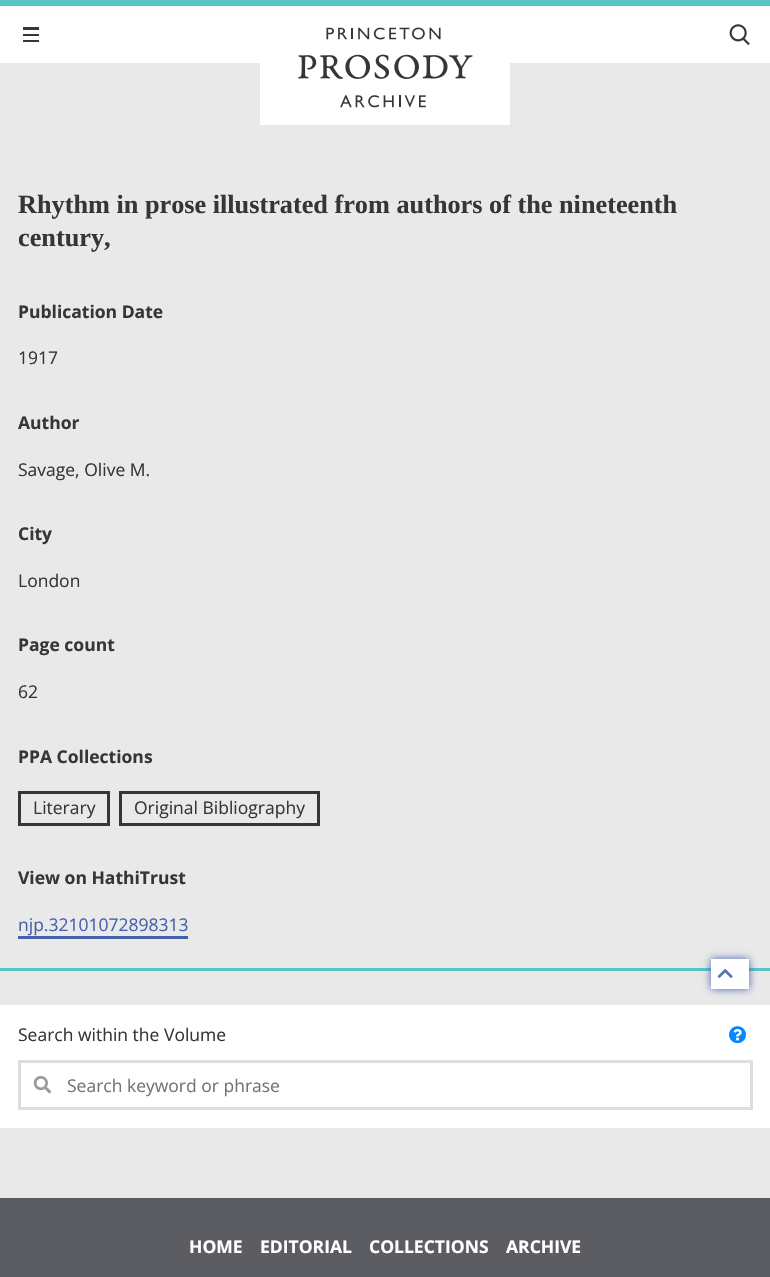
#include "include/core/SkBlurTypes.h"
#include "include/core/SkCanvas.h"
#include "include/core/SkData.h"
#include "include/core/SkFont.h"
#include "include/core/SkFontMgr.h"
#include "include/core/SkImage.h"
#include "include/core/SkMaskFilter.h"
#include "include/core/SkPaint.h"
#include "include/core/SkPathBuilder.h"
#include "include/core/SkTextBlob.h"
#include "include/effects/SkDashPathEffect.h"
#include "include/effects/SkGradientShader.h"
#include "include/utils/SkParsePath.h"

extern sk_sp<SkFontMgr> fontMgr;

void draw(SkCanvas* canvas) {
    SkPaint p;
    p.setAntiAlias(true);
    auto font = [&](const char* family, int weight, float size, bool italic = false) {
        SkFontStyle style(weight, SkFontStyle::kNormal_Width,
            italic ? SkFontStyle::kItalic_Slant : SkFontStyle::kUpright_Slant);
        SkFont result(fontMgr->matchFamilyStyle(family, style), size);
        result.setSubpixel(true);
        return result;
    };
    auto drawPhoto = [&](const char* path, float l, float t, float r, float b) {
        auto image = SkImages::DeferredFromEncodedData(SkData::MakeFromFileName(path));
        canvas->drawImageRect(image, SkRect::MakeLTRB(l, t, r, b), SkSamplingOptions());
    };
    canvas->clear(0xFFE9E9E9);
    {
        const struct { float l, t, r, b; SkColor color; } items[] = {
            {0, 6, 770, 63, 0xFFFFFFFF},
            {0, 0, 770, 6, 0xFF57C4C4},
            {23, 27, 39, 30, 0xFF363636},
            {23, 34, 39, 36, 0xFF363636},
            {23, 40, 39, 42, 0xFF363636},
            {260, 63, 510, 125, 0xFFFFFFFF},
        };
        for (auto [l, t, r, b, color] : items) {
            p.setColor(color);
            canvas->drawRect(SkRect::MakeLTRB(l, t, r, b), p);
        }
    }
    drawPhoto("media/1.png", 298, 27, 473, 108);
    drawPhoto("media/2.png", 729, 24, 750, 45);
    p.setColor(0xFF57C4C4);
    canvas->drawRect(SkRect::MakeLTRB(0, 968, 770, 971), p);
    auto font1 = font("Liberation Serif", 700, 26.25f);
    p.setColor(0xFF363636);
    canvas->drawString("Rhythm in prose illustrated from authors of the nineteenth", 18, 213, font1, p);
    canvas->drawString("century,", 18, 246, font1, p);
    auto font2 = font("Open Sans", 700, 17.5f);
    canvas->drawString("Publication Date", 18, 318, font2, p);
    auto font3 = font("Open Sans", 400, 17.5f);
    canvas->drawString("1917", 18, 364, font3, p);
    canvas->drawString("Author", 18, 429, font2, p);
    canvas->drawString("Savage, Olive M.", 18, 476, font3, p);
    canvas->drawString("City", 18, 540, font2, p);
    canvas->drawString("London", 18, 587, font3, p);
    canvas->drawString("Page count", 18, 651, font2, p);
    canvas->drawString("62", 18, 698, font3, p);
    canvas->drawString("PPA Collections", 18, 763, font2, p);
    p.setStyle(SkPaint::kStroke_Style);
    p.setStrokeWidth(3);
    canvas->drawRect(SkRect::MakeLTRB(19.5f, 792.5f, 108.5f, 824.5f), p);
    p.setStyle(SkPaint::kFill_Style);
    canvas->drawString("Literary", 33, 814, font3, p);
    p.setStyle(SkPaint::kStroke_Style);
    canvas->drawRect(SkRect::MakeLTRB(120.5f, 792.5f, 318.5f, 824.5f), p);
    p.setStyle(SkPaint::kFill_Style);
    canvas->drawString("Original Bibliography", 134, 814, font3, p);
    canvas->drawString("View on HathiTrust", 18, 884, font2, p);
    p.setColor(0xFF4661AC);
    canvas->drawString("njp.32101072898313", 18, 931, font3, p);
    canvas->drawRect(SkRect::MakeLTRB(18, 936, 188, 939), p);
    p.setMaskFilter(SkMaskFilter::MakeBlur(kNormal_SkBlurStyle, 4));
    canvas->drawRect(SkRect::MakeLTRB(711, 959, 749, 989), p);
    p.setMaskFilter(nullptr);
    p.setColor(0xFFFFFFFF);
    canvas->drawRect(SkRect::MakeLTRB(711, 959, 749, 989), p);
    drawPhoto("media/3.png", 717, 969, 733, 978);
    canvas->drawRect(SkRect::MakeLTRB(0, 1005, 770, 1128), p);
    p.setColor(0xFF363636);
    canvas->drawString("Search within the Volume", 18, 1041, font3, p);
    p.setStyle(SkPaint::kStroke_Style);
    p.setColor(0xFFDEDEDE);
    canvas->drawRect(SkRect::MakeLTRB(19.5f, 1061.5f, 751.5f, 1108.5f), p);
    drawPhoto("media/4.png", 33, 1076, 52, 1094);
    p.setStyle(SkPaint::kFill_Style);
    p.setColor(0xFF737373);
    canvas->drawString("Search keyword or phrase", 67, 1092, font3, p);
    drawPhoto("media/5.png", 729, 1026, 746, 1044);
    p.setColor(0xFF5C5C63);
    canvas->drawRect(SkRect::MakeLTRB(0, 1198, 770, 1277), p);
    p.setColor(0xFFFFFFFF);
    {
        const struct { const char* s; float x, y; } items[] = {
            {"HOME", 189, 1253},
            {"EDITORIAL", 260, 1253},
            {"COLLECTIONS", 369, 1253},
            {"ARCHIVE", 506, 1253},
        };
        for (auto [s, x, y] : items) {
            canvas->drawString(s, x, y, font2, p);
        }
    }
}
